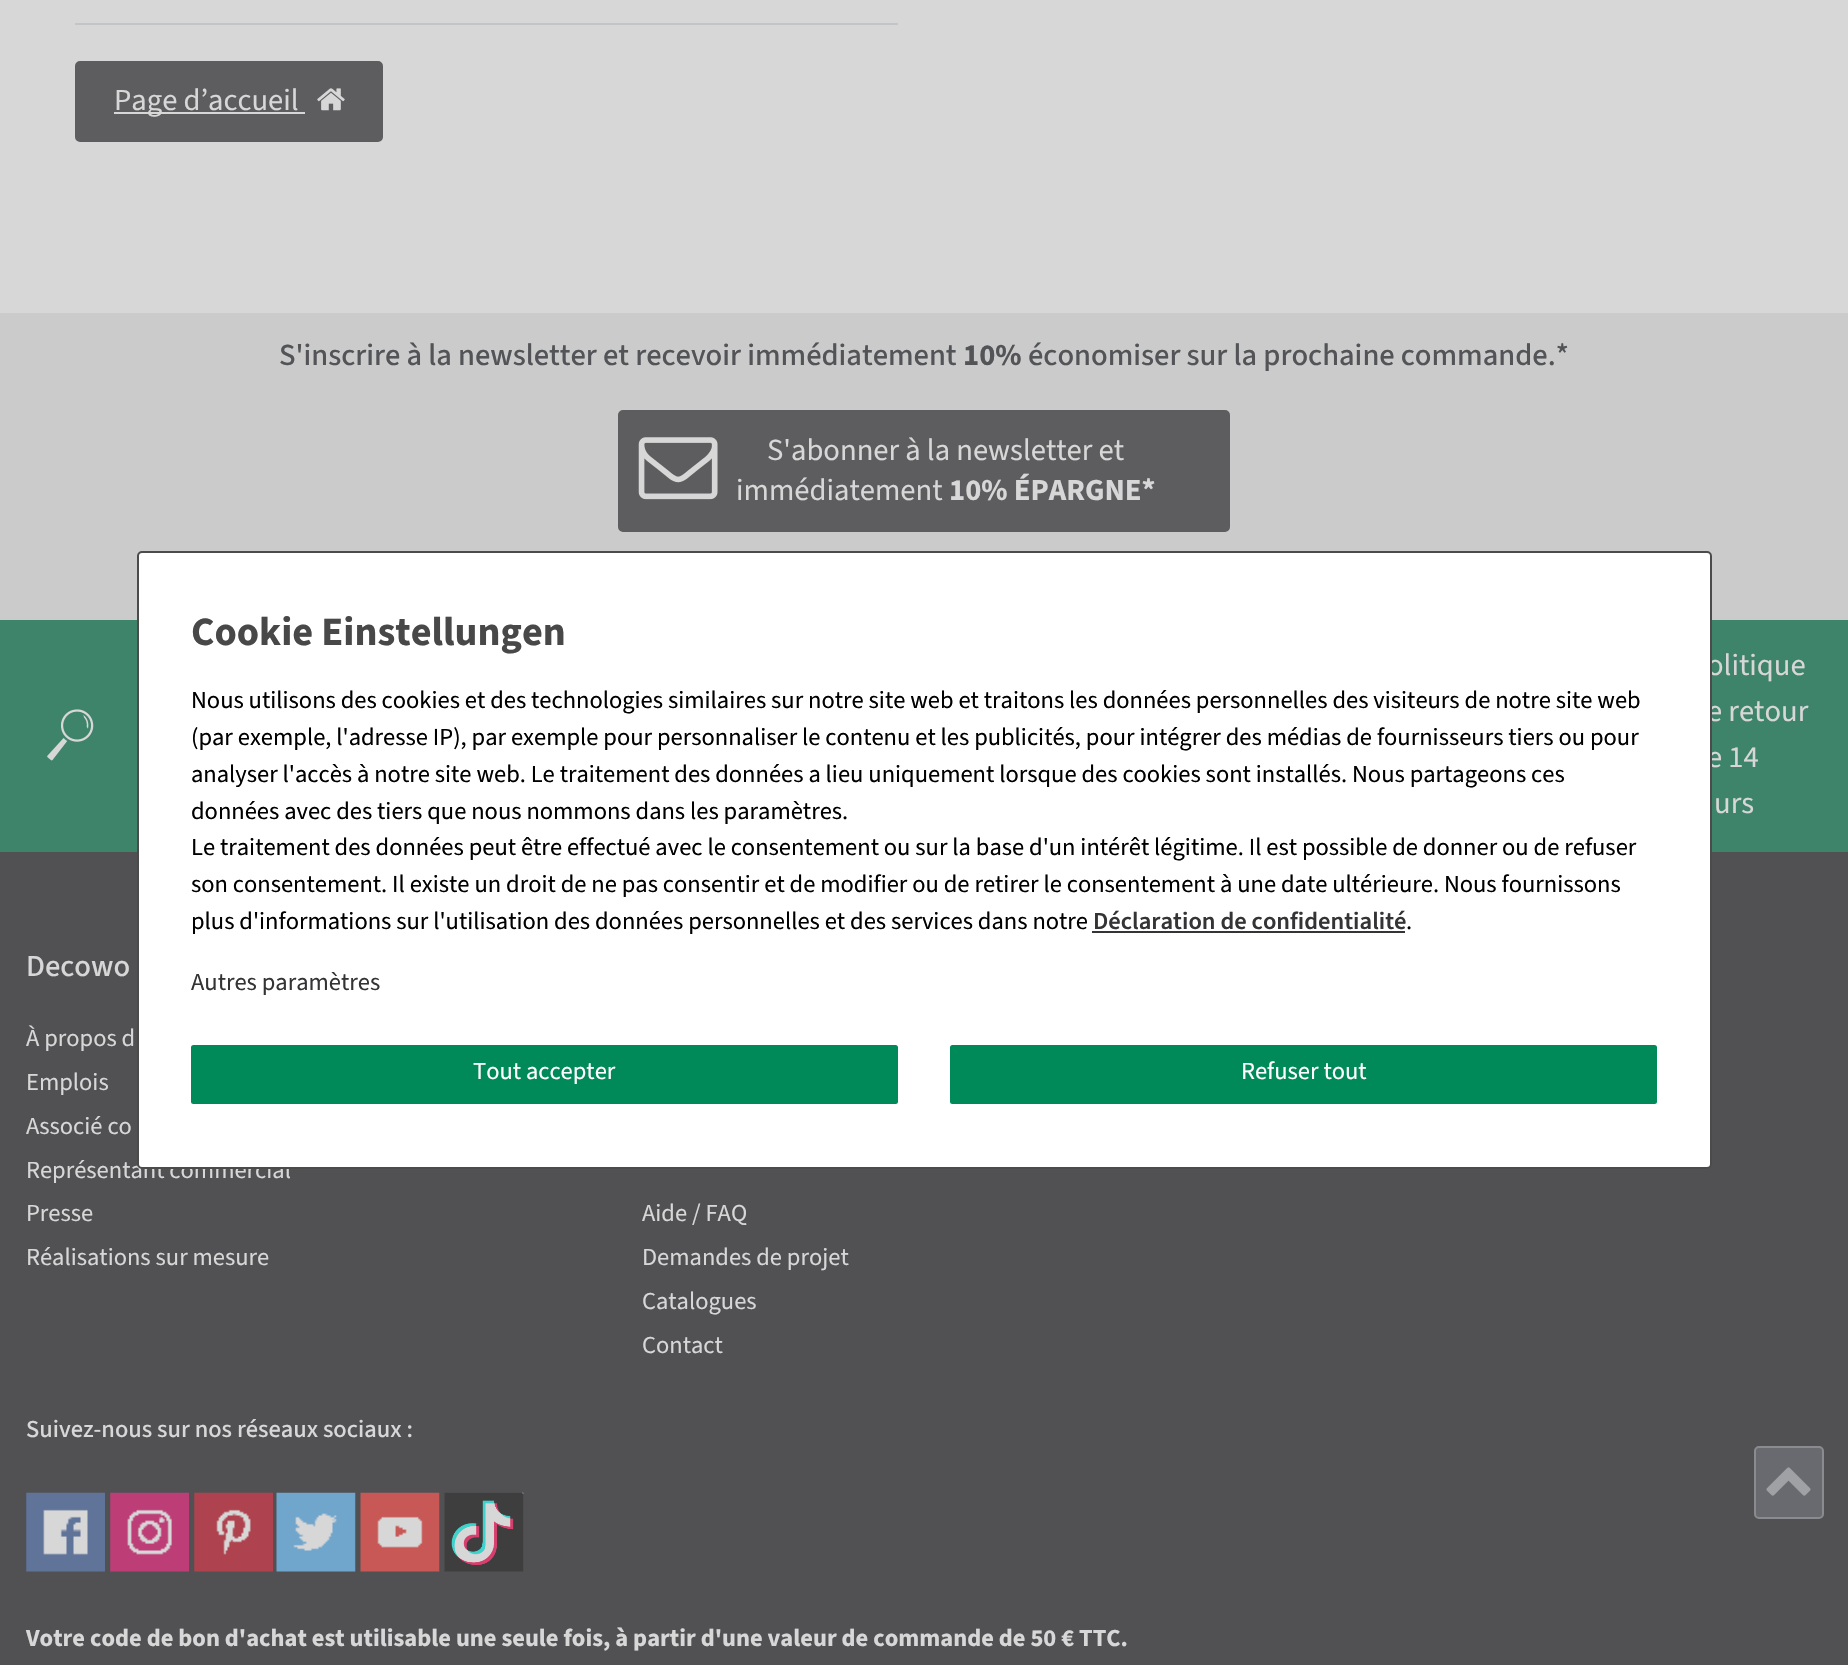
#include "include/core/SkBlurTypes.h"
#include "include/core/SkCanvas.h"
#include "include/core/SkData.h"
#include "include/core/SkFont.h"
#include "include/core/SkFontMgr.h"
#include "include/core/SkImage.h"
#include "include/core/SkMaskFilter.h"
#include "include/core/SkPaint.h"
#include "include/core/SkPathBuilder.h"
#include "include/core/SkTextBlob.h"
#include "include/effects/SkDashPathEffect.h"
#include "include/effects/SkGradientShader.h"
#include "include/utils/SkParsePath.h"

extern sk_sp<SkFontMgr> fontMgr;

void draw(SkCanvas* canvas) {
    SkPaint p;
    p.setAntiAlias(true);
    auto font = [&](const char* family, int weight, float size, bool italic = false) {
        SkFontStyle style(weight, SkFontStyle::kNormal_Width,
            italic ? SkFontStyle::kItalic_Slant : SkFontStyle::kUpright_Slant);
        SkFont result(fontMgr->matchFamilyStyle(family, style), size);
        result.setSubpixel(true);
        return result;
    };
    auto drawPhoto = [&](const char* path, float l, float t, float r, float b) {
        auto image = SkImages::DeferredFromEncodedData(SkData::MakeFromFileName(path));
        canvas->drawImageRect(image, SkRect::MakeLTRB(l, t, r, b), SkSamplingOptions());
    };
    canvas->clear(0xFFD7D7D7);
    p.setColor(0xFFC3C6C8);
    canvas->drawRect(SkRect::MakeLTRB(75, 23, 898, 25), p);
    p.setColor(0xFF5D5D5F);
    canvas->drawRoundRect(SkRect::MakeLTRB(76, 62, 382, 141), 4, 4, p);
    p.setStyle(SkPaint::kStroke_Style);
    p.setStrokeWidth(2);
    canvas->drawRoundRect(SkRect::MakeLTRB(76, 62, 382, 141), 4, 4, p);
    p.setStyle(SkPaint::kFill_Style);
    p.setColor(0xFFD7D7D7);
    canvas->drawRect(SkRect::MakeLTRB(114, 112, 305, 114), p);
    auto font1 = font("Source Sans 3", 400, 30.6f);
    canvas->drawString("Page d’accueil", 114, 110, font1, p);
    drawPhoto("media/1.png", 317, 88, 345, 111);
    p.setColor(0xFF515154);
    canvas->drawRect(SkRect::MakeLTRB(0, 852, 1848, 1665), p);
    p.setColor(0xFFCBCBCB);
    canvas->drawRect(SkRect::MakeLTRB(0, 313, 1848, 620), p);
    auto font2 = font("Source Sans 3", 500, 30.6f);
    p.setColor(0xFF525457);
    canvas->drawString("S'inscrire à la newsletter et recevoir immédiatement", 279, 365, font2, p);
    auto font3 = font("Source Sans 3", 700, 30.6f);
    canvas->drawString("10%", 963, 365, font3, p);
    canvas->drawString("économiser sur la prochaine commande.*", 1028, 365, font2, p);
    p.setColor(0xFF5D5D5F);
    canvas->drawRoundRect(SkRect::MakeLTRB(619, 411, 1229, 531), 4, 4, p);
    p.setStyle(SkPaint::kStroke_Style);
    canvas->drawRoundRect(SkRect::MakeLTRB(619, 411, 1229, 531), 4, 4, p);
    drawPhoto("media/2.png", 638, 437, 718, 500);
    p.setStyle(SkPaint::kFill_Style);
    p.setColor(0xFFD7D7D7);
    canvas->drawString("S'abonner à la newsletter et", 767, 460, font1, p);
    canvas->drawString("immédiatement", 736, 500, font1, p);
    canvas->drawString("10% ÉPARGNE*", 949, 500, font3, p);
    p.setColor(0xFF3E846B);
    canvas->drawRect(SkRect::MakeLTRB(0, 620, 1848, 852), p);
    drawPhoto("media/3.png", 47, 709, 94, 761);
    p.setColor(0xFFD7D7D7);
    {
        const struct { const char* s; float x, y; } items[] = {
            {"olitique", 1707, 675},
            {"e retour", 1707, 721},
            {"e 14", 1707, 767},
            {"urs", 1714, 813},
        };
        for (auto [s, x, y] : items) {
            canvas->drawString(s, x, y, font1, p);
        }
    }
    auto font4 = font("Source Sans 3", 400, 24.5f);
    canvas->drawString("Représentant commercial", 26, 1178, font4, p);
    p.setColor(0xFFFFFFFF);
    canvas->drawRoundRect(SkRect::MakeLTRB(138, 552, 1711, 1168), 4, 4, p);
    p.setStyle(SkPaint::kStroke_Style);
    p.setColor(0xFF4B4B4B);
    canvas->drawRoundRect(SkRect::MakeLTRB(138, 552, 1711, 1168), 4, 4, p);
    auto font5 = font("Source Sans 3", 700, 40.25f);
    p.setStyle(SkPaint::kFill_Style);
    p.setColor(0xFF484848);
    canvas->drawString("Cookie Einstellungen", 191, 645, font5, p);
    p.setColor(0xFF000000);
    {
        const struct { const char* s; float x, y; } items[] = {
            {"Nous utilisons des cookies et des technologies similaires sur notre site web et traitons les données personnelles des visiteurs de notre site web", 191, 708},
            {"(par exemple, l'adresse IP), par exemple pour personnaliser le contenu et les publicités, pour intégrer des médias de fournisseurs tiers ou pour", 191, 745},
            {"analyser l'accès à notre site web. Le traitement des données a lieu uniquement lorsque des cookies sont installés. Nous partageons ces", 191, 782},
            {"données avec des tiers que nous nommons dans les paramètres.", 191, 819},
            {"Le traitement des données peut être effectué avec le consentement ou sur la base d'un intérêt légitime. Il est possible de donner ou de refuser", 191, 855},
            {"son consentement. Il existe un droit de ne pas consentir et de modifier ou de retirer le consentement à une date ultérieure. Nous fournissons", 191, 892},
            {"plus d'informations sur l'utilisation des données personnelles et des services dans notre", 191, 929},
        };
        for (auto [s, x, y] : items) {
            canvas->drawString(s, x, y, font4, p);
        }
    }
    auto font6 = font("Source Sans 3", 600, 24.5f);
    p.setColor(0xFF343437);
    canvas->drawString("Déclaration de confidentialité", 1093, 929, font6, p);
    canvas->drawRect(SkRect::MakeLTRB(1092, 931, 1405, 933), p);
    p.setColor(0xFF000000);
    canvas->drawString(".", 1406, 929, font4, p);
    p.setColor(0xFF343437);
    canvas->drawString("Autres paramètres", 191, 990, font4, p);
    p.setColor(0xFF008959);
    canvas->drawRoundRect(SkRect::MakeLTRB(192, 1046, 897, 1103), 1.5f, 1.5f, p);
    p.setStyle(SkPaint::kStroke_Style);
    canvas->drawRoundRect(SkRect::MakeLTRB(192, 1046, 897, 1103), 1.5f, 1.5f, p);
    p.setStyle(SkPaint::kFill_Style);
    p.setColor(0xFFFFFFFF);
    canvas->drawString("Tout accepter", 473, 1079, font4, p);
    p.setColor(0xFF008959);
    canvas->drawRoundRect(SkRect::MakeLTRB(951, 1046, 1656, 1103), 1.5f, 1.5f, p);
    p.setStyle(SkPaint::kStroke_Style);
    canvas->drawRoundRect(SkRect::MakeLTRB(951, 1046, 1656, 1103), 1.5f, 1.5f, p);
    p.setStyle(SkPaint::kFill_Style);
    p.setColor(0xFFFFFFFF);
    canvas->drawString("Refuser tout", 1241, 1079, font4, p);
    p.setColor(0xFFD7D7D7);
    canvas->drawString("Decowo", 26, 976, font2, p);
    {
        const struct { const char* s; float x, y; } items[] = {
            {"À propos d", 26, 1046},
            {"Emplois", 26, 1090},
            {"Associé co", 26, 1134},
            {"Presse", 26, 1221},
            {"Réalisations sur mesure", 26, 1265},
            {"Aide / FAQ", 642, 1221},
            {"Demandes de projet", 642, 1265},
            {"Catalogues", 642, 1309},
            {"Contact", 642, 1353},
        };
        for (auto [s, x, y] : items) {
            canvas->drawString(s, x, y, font4, p);
        }
    }
    auto font7 = font("Source Sans 3", 500, 24.5f);
    canvas->drawString("Suivez-nous sur nos réseaux sociaux :", 26, 1437, font7, p);
    drawPhoto("media/4.png", 26, 1492, 105, 1572);
    drawPhoto("media/5.png", 110, 1492, 189, 1572);
    drawPhoto("media/6.png", 194, 1492, 273, 1572);
    drawPhoto("media/7.png", 276, 1492, 356, 1572);
    drawPhoto("media/8.png", 360, 1492, 440, 1572);
    drawPhoto("media/9.png", 444, 1492, 524, 1572);
    auto font8 = font("Source Sans 3", 700, 24.5f);
    canvas->drawString("Votre code de bon d'achat est utilisable une seule fois, à partir d'une valeur de commande de 50 € TTC.", 26, 1646, font8, p);
    p.setColor(0xFF686A6F);
    canvas->drawRoundRect(SkRect::MakeLTRB(1755, 1447, 1823, 1518), 4, 4, p);
    p.setStyle(SkPaint::kStroke_Style);
    p.setColor(0xFF8A8B8E);
    canvas->drawRoundRect(SkRect::MakeLTRB(1755, 1447, 1823, 1518), 4, 4, p);
    drawPhoto("media/10.png", 1766, 1467, 1811, 1496);
}
